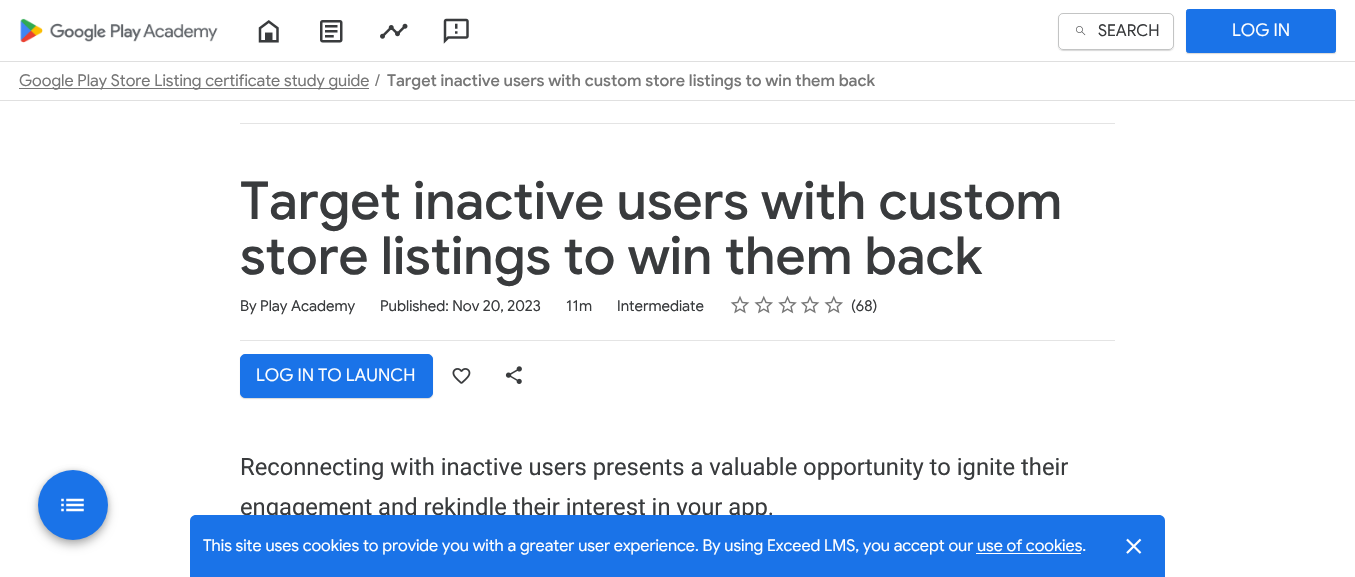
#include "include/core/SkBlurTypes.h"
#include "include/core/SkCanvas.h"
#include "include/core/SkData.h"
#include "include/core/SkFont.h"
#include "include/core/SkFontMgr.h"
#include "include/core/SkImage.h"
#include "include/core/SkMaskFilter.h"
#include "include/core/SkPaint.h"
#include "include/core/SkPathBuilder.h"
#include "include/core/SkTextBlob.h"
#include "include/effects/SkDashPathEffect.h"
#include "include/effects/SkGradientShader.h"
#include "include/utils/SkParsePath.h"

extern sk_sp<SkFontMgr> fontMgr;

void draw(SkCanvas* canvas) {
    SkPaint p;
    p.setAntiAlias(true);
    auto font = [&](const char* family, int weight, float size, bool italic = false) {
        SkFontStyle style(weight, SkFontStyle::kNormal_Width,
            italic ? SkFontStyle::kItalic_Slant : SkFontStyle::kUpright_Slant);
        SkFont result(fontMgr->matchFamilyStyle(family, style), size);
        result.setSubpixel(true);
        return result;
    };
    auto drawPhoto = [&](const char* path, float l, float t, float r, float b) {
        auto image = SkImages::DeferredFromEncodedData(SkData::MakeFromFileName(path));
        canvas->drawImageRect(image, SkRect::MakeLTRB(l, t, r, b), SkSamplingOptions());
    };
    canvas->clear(0xFFFFFFFF);
    p.setColor(0xFFDFDFDF);
    canvas->drawRect(SkRect::MakeLTRB(0, 61, 1355, 62), p);
    drawPhoto("media/1.png", 20, 18, 218, 43);
    drawPhoto("media/2.png", 258, 20, 279, 43);
    drawPhoto("media/3.png", 320, 20, 343, 43);
    drawPhoto("media/4.png", 380, 23, 408, 39);
    drawPhoto("media/5.png", 443, 18, 469, 44);
    canvas->save();
    canvas->clipPath(SkPathBuilder(SkPathFillType::kEvenOdd).moveTo(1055, 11).lineTo(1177, 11).lineTo(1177, 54).lineTo(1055, 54).close().moveTo(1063, 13).lineTo(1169, 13).cubicTo(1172, 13, 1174, 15, 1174, 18).lineTo(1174, 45).cubicTo(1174, 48, 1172, 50, 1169, 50).lineTo(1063, 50).cubicTo(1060, 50, 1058, 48, 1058, 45).lineTo(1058, 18).cubicTo(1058, 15, 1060, 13, 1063, 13).close().detach(), true);
    p.setColor(0x26000000);
    p.setMaskFilter(SkMaskFilter::MakeBlur(kNormal_SkBlurStyle, 0.5f));
    canvas->drawRoundRect(SkRect::MakeLTRB(1058, 14, 1174, 51), 5, 5, p);
    p.setMaskFilter(nullptr);
    canvas->restore();
    p.setStyle(SkPaint::kStroke_Style);
    p.setStrokeWidth(1);
    p.setColor(0x4D393B3D);
    canvas->drawRoundRect(SkRect::MakeLTRB(1058.5f, 13.5f, 1173.5f, 49.5f), 4.5f, 4.5f, p);
    drawPhoto("media/6.png", 1076, 26, 1086, 36);
    auto font1 = font("Google Sans", 400, 16.25f);
    p.setStyle(SkPaint::kFill_Style);
    p.setColor(0xFF393B3D);
    canvas->drawString("SEARCH", 1098, 36, font1, p);
    p.setColor(0x26000000);
    p.setMaskFilter(SkMaskFilter::MakeBlur(kNormal_SkBlurStyle, 0.5f));
    canvas->drawRoundRect(SkRect::MakeLTRB(1186, 10, 1336, 54), 2.5f, 2.5f, p);
    p.setMaskFilter(nullptr);
    p.setColor(0xFF1A73E8);
    canvas->drawRoundRect(SkRect::MakeLTRB(1186.5f, 9.5f, 1335.5f, 52.5f), 2, 2, p);
    p.setStyle(SkPaint::kStroke_Style);
    canvas->drawRoundRect(SkRect::MakeLTRB(1186.5f, 9.5f, 1335.5f, 52.5f), 2, 2, p);
    auto font2 = font("Google Sans", 400, 17.5f);
    p.setStyle(SkPaint::kFill_Style);
    p.setColor(0xFFFFFFFF);
    canvas->drawString("LOG IN", 1232, 36, font2, p);
    p.setColor(0xFFE0E0E0);
    canvas->drawRect(SkRect::MakeLTRB(0, 100, 1355, 101), p);
    p.setColor(0xFF767676);
    canvas->drawRect(SkRect::MakeLTRB(19, 88, 369, 89), p);
    canvas->drawString("Google Play Store Listing certificate study guide", 19, 86, font1, p);
    canvas->drawString("/", 375, 86, font1, p);
    auto font3 = font("Google Sans", 500, 16.25f);
    canvas->drawString("Target inactive users with custom store listings to win them back", 387, 86, font3, p);
    p.setColor(0x47000000);
    p.setMaskFilter(SkMaskFilter::MakeBlur(kNormal_SkBlurStyle, 5));
    canvas->drawRoundRect(SkRect::MakeLTRB(38, 475, 108, 545), 35, 35, p);
    p.setMaskFilter(nullptr);
    p.setColor(0x24000000);
    p.setMaskFilter(SkMaskFilter::MakeBlur(kNormal_SkBlurStyle, 2.5f));
    canvas->drawRoundRect(SkRect::MakeLTRB(38, 470, 108, 540), 35, 35, p);
    p.setMaskFilter(nullptr);
    p.setColor(0xFF1A73E8);
    canvas->drawCircle(73, 505, 35, p);
    drawPhoto("media/7.png", 61, 498, 84, 512);
    p.setColor(0xFFE4E4E4);
    canvas->drawRect(SkRect::MakeLTRB(240, 123, 1115, 124), p);
    auto font4 = font("Google Sans", 500, 52.5f);
    p.setColor(0xFF393B3D);
    canvas->drawString("Target inactive users with custom", 240, 219, font4, p);
    canvas->drawString("store listings to win them back", 240, 274, font4, p);
    auto font5 = font("Google Sans", 400, 15);
    {
        const struct { const char* s; float x, y; } items[] = {
            {"By Play Academy", 240, 311},
            {"Published: Nov 20, 2023", 380, 311},
            {"11m", 566, 311},
            {"Intermediate", 617, 311},
        };
        for (auto [s, x, y] : items) {
            canvas->drawString(s, x, y, font5, p);
        }
    }
    drawPhoto("media/8.png", 730, 295, 750, 314);
    drawPhoto("media/9.png", 754, 295, 773, 314);
    drawPhoto("media/10.png", 778, 295, 797, 314);
    drawPhoto("media/8.png", 800, 295, 820, 314);
    drawPhoto("media/9.png", 824, 295, 843, 314);
    canvas->drawString("(68)", 851, 311, font5, p);
    p.setColor(0xFFE4E4E4);
    canvas->drawRect(SkRect::MakeLTRB(240, 340, 1115, 341), p);
    p.setColor(0x26000000);
    p.setMaskFilter(SkMaskFilter::MakeBlur(kNormal_SkBlurStyle, 0.5f));
    canvas->drawRoundRect(SkRect::MakeLTRB(240, 355, 433, 399), 5, 5, p);
    p.setMaskFilter(nullptr);
    p.setColor(0xFF1A73E8);
    canvas->drawRoundRect(SkRect::MakeLTRB(240.5f, 354.5f, 432.5f, 397.5f), 4.5f, 4.5f, p);
    p.setStyle(SkPaint::kStroke_Style);
    canvas->drawRoundRect(SkRect::MakeLTRB(240.5f, 354.5f, 432.5f, 397.5f), 4.5f, 4.5f, p);
    p.setStyle(SkPaint::kFill_Style);
    p.setColor(0xFFFFFFFF);
    canvas->drawString("LOG IN TO LAUNCH", 256, 381, font2, p);
    drawPhoto("media/11.png", 452, 368, 471, 384);
    drawPhoto("media/12.png", 505, 366, 522, 384);
    auto font6 = font("Roboto", 400, 23.75f);
    p.setColor(0xFF393B3D);
    canvas->drawString("Reconnecting with inactive users presents a valuable opportunity to ignite their", 240, 475, font6, p);
    canvas->drawString("engagement and rekindle their interest in your app.", 240, 515, font6, p);
    p.setColor(0xFF1A73E8);
    canvas->drawPath(SkPathBuilder().moveTo(196, 515).lineTo(1159, 515).cubicTo(1162.5f, 515, 1165, 517.5f, 1165, 521).lineTo(1165, 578).lineTo(190, 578).lineTo(190, 521).cubicTo(190, 517.5f, 192.5f, 515, 196, 515).close().detach(), p);
    p.setColor(0xFFFFFFFF);
    canvas->drawString("This site uses cookies to provide you with a greater user experience. By using Exceed LMS, you accept our use of cookies.", 203, 551, font1, p);
    canvas->drawRect(SkRect::MakeLTRB(976, 553, 1081, 554), p);
    drawPhoto("media/13.png", 1126, 538, 1142, 554);
}
